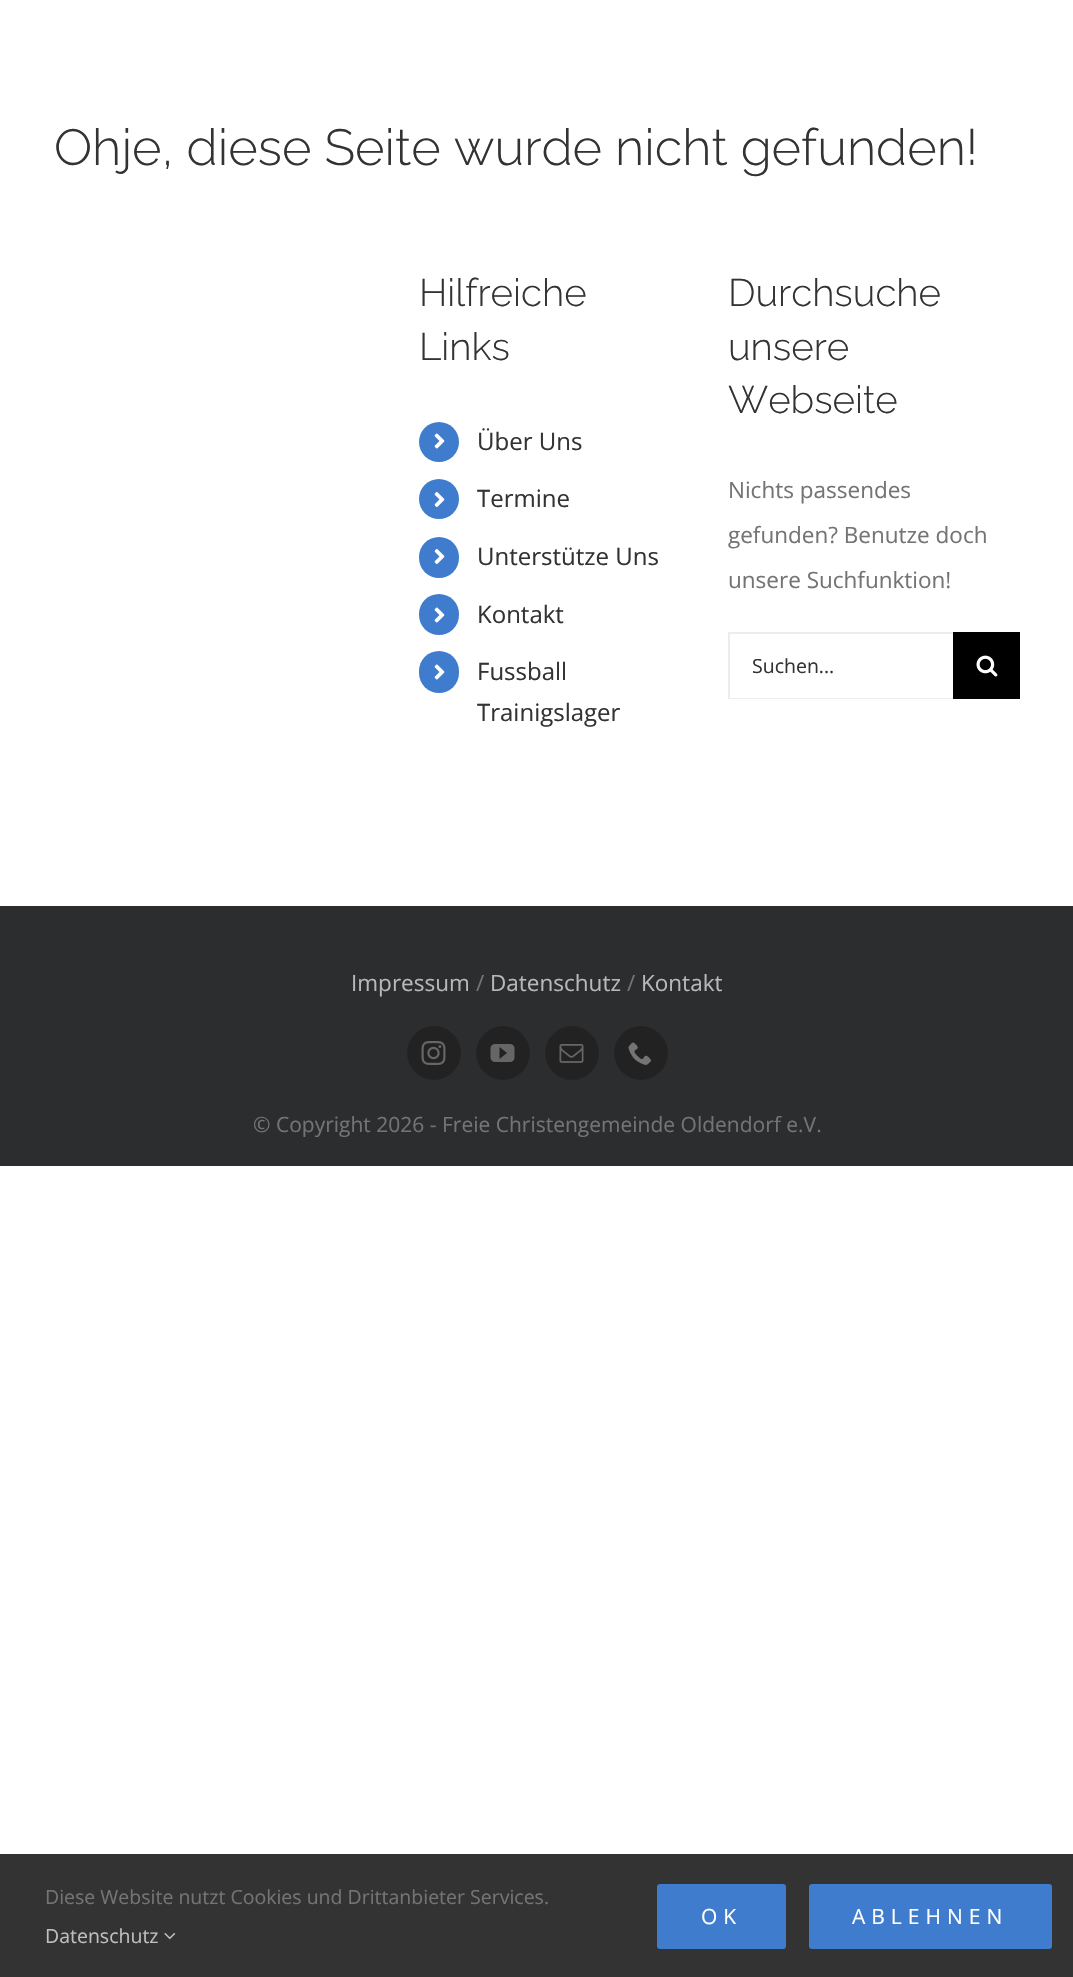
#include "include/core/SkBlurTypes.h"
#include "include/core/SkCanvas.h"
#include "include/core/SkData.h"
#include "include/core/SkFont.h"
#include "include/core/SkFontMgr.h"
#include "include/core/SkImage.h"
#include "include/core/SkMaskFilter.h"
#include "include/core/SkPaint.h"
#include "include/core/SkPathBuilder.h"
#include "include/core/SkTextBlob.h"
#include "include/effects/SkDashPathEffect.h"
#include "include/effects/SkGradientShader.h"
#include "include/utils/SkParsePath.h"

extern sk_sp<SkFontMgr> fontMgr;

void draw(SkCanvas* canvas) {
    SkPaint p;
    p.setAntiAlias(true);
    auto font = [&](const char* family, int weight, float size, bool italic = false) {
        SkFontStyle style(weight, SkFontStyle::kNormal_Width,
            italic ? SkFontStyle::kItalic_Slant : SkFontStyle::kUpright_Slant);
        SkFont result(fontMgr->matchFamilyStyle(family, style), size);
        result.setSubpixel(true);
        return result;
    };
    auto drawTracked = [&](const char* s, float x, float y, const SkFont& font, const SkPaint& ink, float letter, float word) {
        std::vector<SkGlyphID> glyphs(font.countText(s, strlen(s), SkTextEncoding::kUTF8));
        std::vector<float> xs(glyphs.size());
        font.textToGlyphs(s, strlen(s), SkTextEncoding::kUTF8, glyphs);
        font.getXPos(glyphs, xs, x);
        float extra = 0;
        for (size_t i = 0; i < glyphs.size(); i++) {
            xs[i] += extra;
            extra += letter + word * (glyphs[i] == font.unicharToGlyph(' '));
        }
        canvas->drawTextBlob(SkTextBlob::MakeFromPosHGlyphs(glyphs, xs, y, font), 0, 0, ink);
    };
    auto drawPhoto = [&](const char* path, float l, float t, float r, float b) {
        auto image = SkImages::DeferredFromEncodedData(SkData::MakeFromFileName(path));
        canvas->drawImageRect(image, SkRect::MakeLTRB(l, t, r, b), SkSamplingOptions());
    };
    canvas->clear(0xFFFFFFFF);
    auto font1 = font("Raleway", 300, 50.6f);
    p.setColor(0xFF333333);
    canvas->drawString("Ohje, diese Seite wurde nicht gefunden!", 54, 165, font1, p);
    auto font2 = font("Raleway", 300, 38.5f);
    canvas->drawString("Hilfreiche", 419, 306, font2, p);
    canvas->drawString("Links", 419, 360, font2, p);
    p.setColor(0xFF3F7CCD);
    canvas->drawCircle(439, 442, 20, p);
    drawPhoto("media/1.png", 434, 433, 445, 449);
    auto font3 = font("Open Sans", 400, 24);
    p.setColor(0xFF333333);
    canvas->drawString("Über Uns", 477, 450, font3, p);
    p.setColor(0xFF3F7CCD);
    canvas->drawCircle(439, 499, 20, p);
    drawPhoto("media/2.png", 434, 492, 445, 507);
    p.setColor(0xFF333333);
    canvas->drawString("Termine", 477, 507, font3, p);
    p.setColor(0xFF3F7CCD);
    canvas->drawRoundRect(SkRect::MakeLTRB(419, 537, 459, 578), 20, 20, p);
    drawPhoto("media/2.png", 434, 549, 445, 564);
    p.setColor(0xFF333333);
    canvas->drawString("Unterstütze Uns", 477, 565, font3, p);
    p.setColor(0xFF3F7CCD);
    canvas->drawRoundRect(SkRect::MakeLTRB(419, 594, 459, 635), 20, 20, p);
    drawPhoto("media/1.png", 434, 607, 445, 623);
    p.setColor(0xFF333333);
    canvas->drawString("Kontakt", 477, 623, font3, p);
    p.setColor(0xFF3F7CCD);
    canvas->drawRoundRect(SkRect::MakeLTRB(419, 651, 459, 693), 20, 20, p);
    drawPhoto("media/1.png", 434, 664, 445, 680);
    p.setColor(0xFF333333);
    canvas->drawString("Fussball", 477, 680, font3, p);
    canvas->drawString("Trainigslager", 477, 721, font3, p);
    {
        const struct { const char* s; float x, y; } items[] = {
            {"Durchsuche", 728, 306},
            {"unsere", 728, 360},
            {"Webseite", 728, 413},
        };
        for (auto [s, x, y] : items) {
            canvas->drawString(s, x, y, font2, p);
        }
    }
    auto font4 = font("Open Sans", 400, 22.5f);
    p.setColor(0xFF747474);
    {
        const struct { const char* s; float x, y; } items[] = {
            {"Nichts passendes", 728, 498},
            {"gefunden? Benutze doch", 728, 543},
            {"unsere Suchfunktion!", 728, 588},
        };
        for (auto [s, x, y] : items) {
            canvas->drawString(s, x, y, font4, p);
        }
    }
    {
        const struct { float l, t, r, b; SkColor color; } items[] = {
            {728, 632, 953, 634, 0xFFECECEC},
            {728, 698, 953, 699, 0xFFECECEC},
            {728, 632, 730, 699, 0xFFECECEC},
        };
        for (auto [l, t, r, b, color] : items) {
            p.setColor(color);
            canvas->drawRect(SkRect::MakeLTRB(l, t, r, b), p);
        }
    }
    auto font5 = font("Open Sans", 400, 19.5f);
    p.setColor(0xFF333333);
    canvas->drawString("Suchen...", 752, 673, font5, p);
    p.setColor(0xFF000000);
    canvas->drawRect(SkRect::MakeLTRB(953, 632, 1020, 699), p);
    drawPhoto("media/3.png", 976, 655, 998, 677);
    p.setColor(0xFF2C2D2F);
    canvas->drawRect(SkRect::MakeLTRB(0, 906, 1073, 1166), p);
    p.setColor(0xFFB8B8B8);
    canvas->drawString("Impressum", 351, 991, font4, p);
    p.setColor(0xFF747474);
    canvas->drawString("/", 476, 991, font4, p);
    p.setColor(0xFFB8B8B8);
    canvas->drawString("Datenschutz", 490, 991, font4, p);
    p.setColor(0xFF747474);
    canvas->drawString("/", 627, 991, font4, p);
    p.setColor(0xFFB8B8B8);
    canvas->drawString("Kontakt", 641, 991, font4, p);
    p.setColor(0xFF222222);
    canvas->drawCircle(434, 1053, 27, p);
    drawPhoto("media/4.png", 421, 1041, 446, 1065);
    canvas->drawCircle(503, 1053, 27, p);
    drawPhoto("media/5.png", 490, 1044, 515, 1062);
    canvas->drawCircle(572, 1053, 27, p);
    drawPhoto("media/6.png", 559, 1044, 584, 1063);
    canvas->drawCircle(641, 1053, 27, p);
    drawPhoto("media/7.png", 628, 1042, 651, 1065);
    auto font6 = font("Open Sans", 400, 21);
    p.setColor(0xFF747474);
    canvas->drawString("© Copyright 2026 - Freie Christengemeinde Oldendorf e.V.", 253, 1132, font6, p);
    p.setColor(0xFF333333);
    canvas->drawRect(SkRect::MakeLTRB(0, 1854, 1073, 1977), p);
    p.setColor(0xFF747474);
    canvas->drawString("Diese Website nutzt Cookies und Drittanbieter Services.", 45, 1904, font5, p);
    p.setColor(0xFFBFBFBF);
    canvas->drawString("Datenschutz", 45, 1943, font5, p);
    drawPhoto("media/8.png", 164, 1932, 176, 1940);
    p.setColor(0xFF3F7CCD);
    canvas->drawRoundRect(SkRect::MakeLTRB(657, 1884, 786, 1949), 3, 3, p);
    p.setColor(0xFFFFFFFF);
    drawTracked("OK", 701, 1924, font6, p, 6, 0);
    p.setColor(0xFF3F7CCD);
    canvas->drawRoundRect(SkRect::MakeLTRB(809, 1884, 1052, 1949), 3, 3, p);
    p.setColor(0xFFFFFFFF);
    drawTracked("ABLEHNEN", 852, 1924, font6, p, 6, 0);
}
